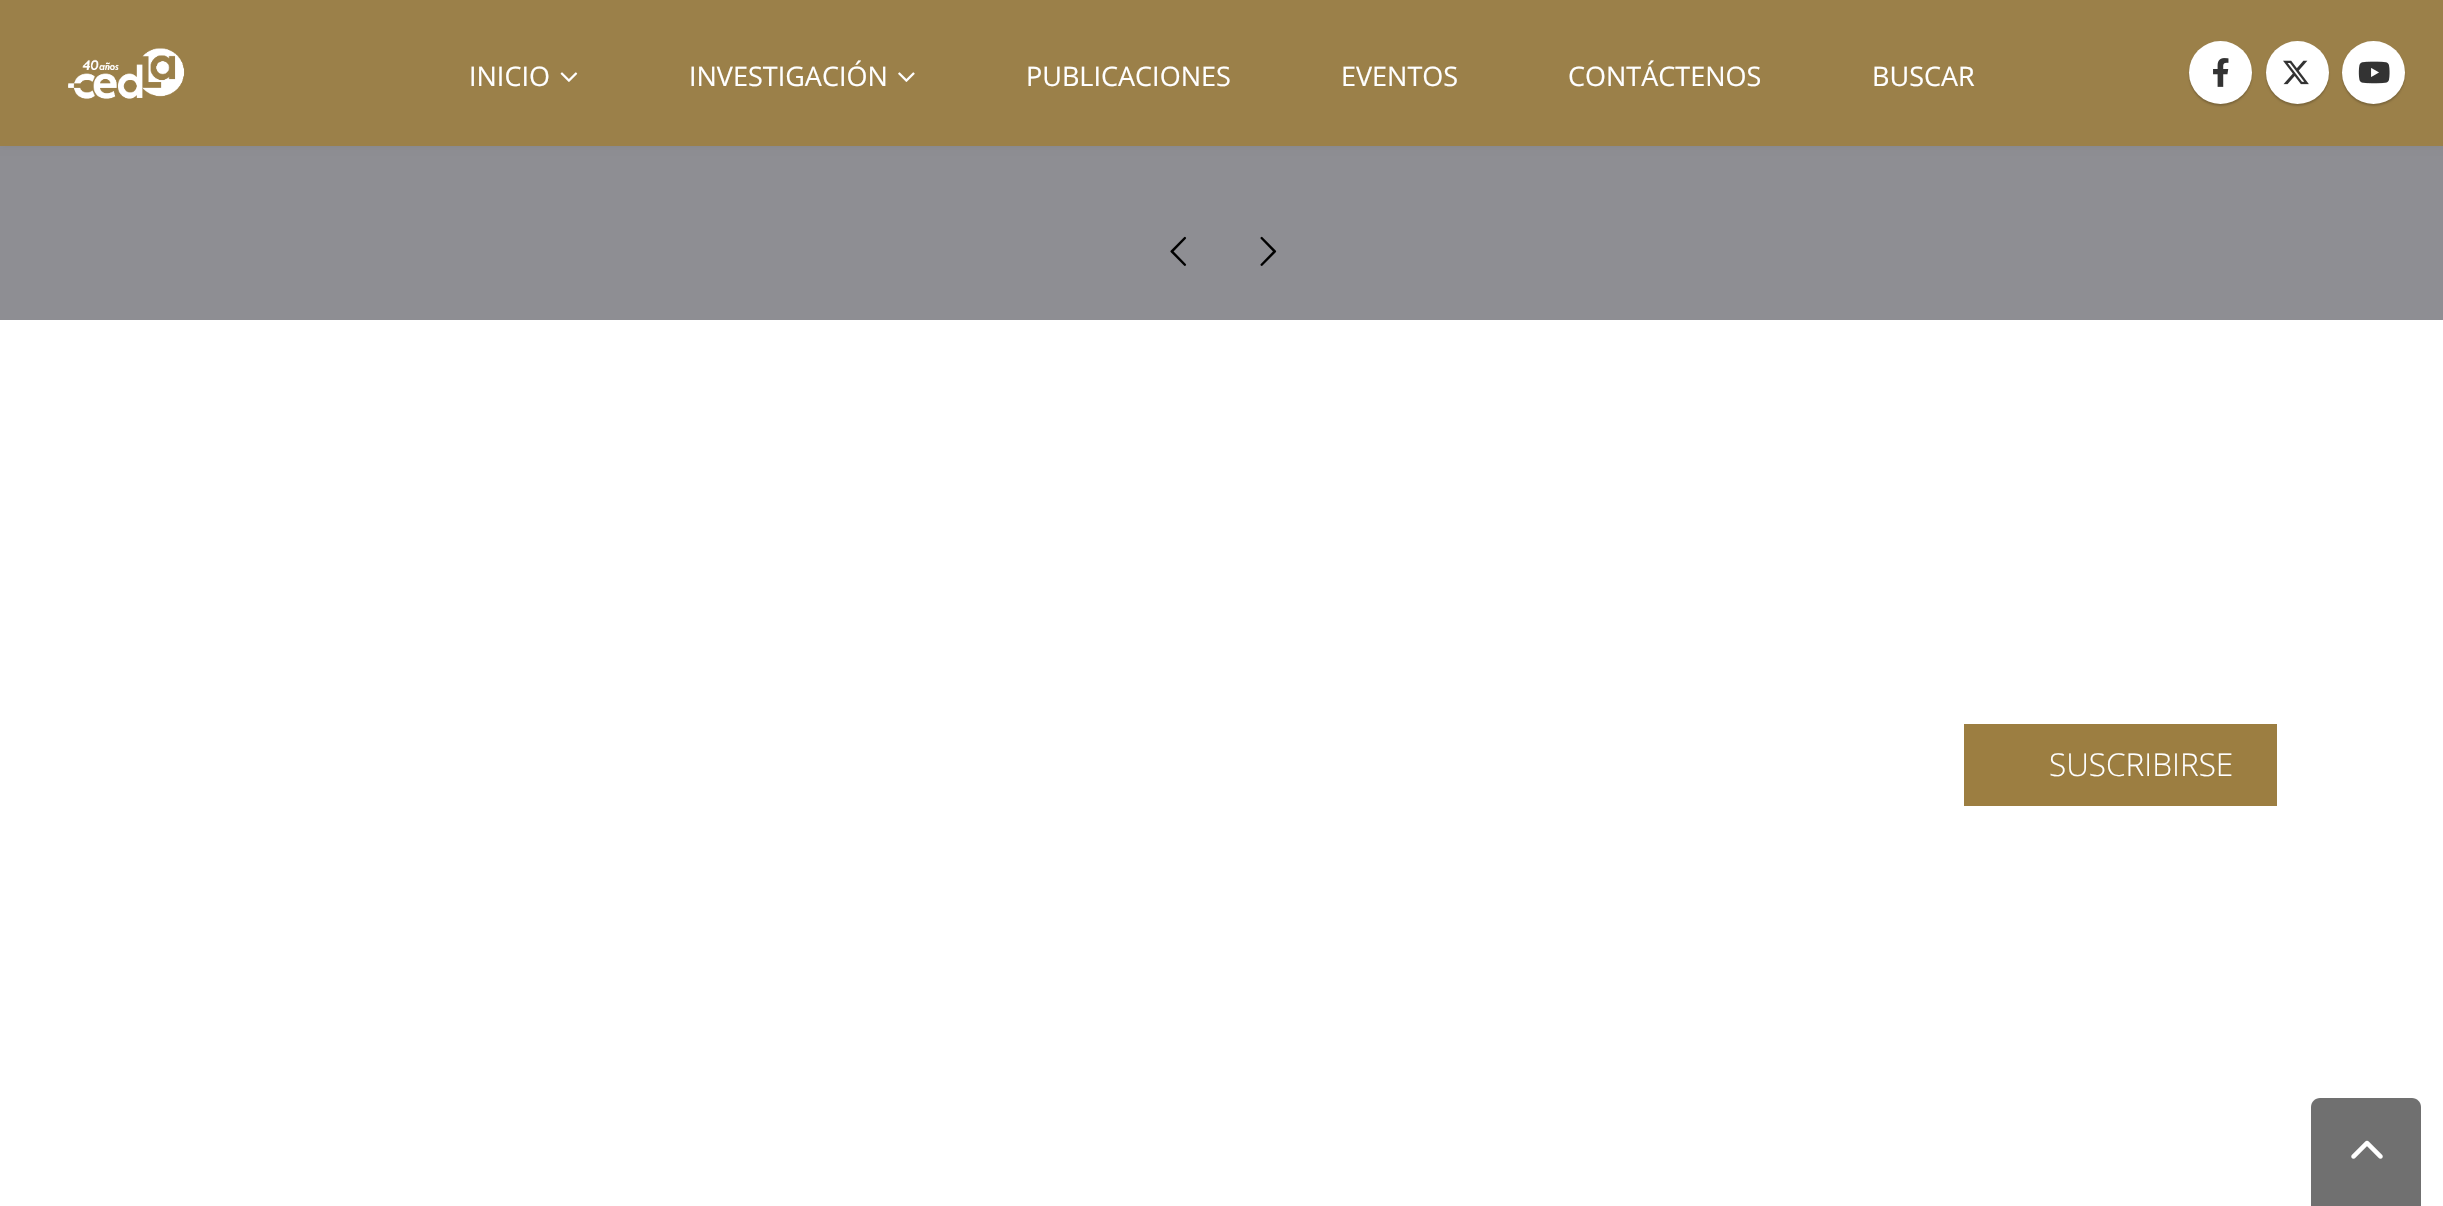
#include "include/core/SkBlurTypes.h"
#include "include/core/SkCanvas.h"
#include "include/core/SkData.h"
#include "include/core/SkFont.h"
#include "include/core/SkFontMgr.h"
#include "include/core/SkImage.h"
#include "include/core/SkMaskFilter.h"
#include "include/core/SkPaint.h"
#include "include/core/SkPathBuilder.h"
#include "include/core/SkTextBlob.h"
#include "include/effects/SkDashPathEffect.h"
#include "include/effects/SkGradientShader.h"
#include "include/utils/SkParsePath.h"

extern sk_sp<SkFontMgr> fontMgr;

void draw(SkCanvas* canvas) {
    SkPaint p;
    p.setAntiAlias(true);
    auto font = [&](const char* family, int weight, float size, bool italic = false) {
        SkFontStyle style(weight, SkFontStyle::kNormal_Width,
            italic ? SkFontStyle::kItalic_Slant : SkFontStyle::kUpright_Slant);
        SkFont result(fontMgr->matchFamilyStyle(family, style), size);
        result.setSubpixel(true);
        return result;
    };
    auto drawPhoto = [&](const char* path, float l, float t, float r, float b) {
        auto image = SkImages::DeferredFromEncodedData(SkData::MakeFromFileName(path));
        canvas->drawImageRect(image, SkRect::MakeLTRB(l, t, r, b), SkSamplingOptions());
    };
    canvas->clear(0xFFFFFFFF);
    p.setColor(0xFF8E8E93);
    canvas->drawRect(SkRect::MakeLTRB(0, 146, 2443, 320), p);
    p.setColor(0x0F000000);
    p.setMaskFilter(SkMaskFilter::MakeBlur(kNormal_SkBlurStyle, 3.5f));
    canvas->drawRect(SkRect::MakeLTRB(0, 0, 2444, 146), p);
    p.setMaskFilter(nullptr);
    p.setColor(0xFF9B8049);
    canvas->drawRect(SkRect::MakeLTRB(0, 0, 2443, 146), p);
    drawPhoto("media/1.png", 68, 48, 185, 99);
    auto font1 = font("Open Sans", 400, 27);
    p.setColor(0xFFFFFFFF);
    canvas->drawString("INICIO", 469, 86, font1, p);
    drawPhoto("media/2.png", 560, 72, 578, 82);
    canvas->drawString("INVESTIGACIÓN", 689, 86, font1, p);
    drawPhoto("media/3.png", 898, 72, 915, 82);
    {
        const struct { const char* s; float x, y; } items[] = {
            {"PUBLICACIONES", 1026, 86},
            {"EVENTOS", 1341, 86},
            {"CONTÁCTENOS", 1568, 86},
            {"BUSCAR", 1872, 86},
        };
        for (auto [s, x, y] : items) {
            canvas->drawString(s, x, y, font1, p);
        }
    }
    p.setColor(0x33000000);
    p.setMaskFilter(SkMaskFilter::MakeBlur(kNormal_SkBlurStyle, 1));
    canvas->drawRoundRect(SkRect::MakeLTRB(2189, 43, 2252, 106), 31.5f, 31.5f, p);
    p.setMaskFilter(nullptr);
    p.setColor(0xFFFFFFFF);
    canvas->drawCircle(2220.5f, 72.5f, 31.5f, p);
    drawPhoto("media/4.png", 2213, 58, 2229, 87);
    p.setColor(0x33000000);
    p.setMaskFilter(SkMaskFilter::MakeBlur(kNormal_SkBlurStyle, 1));
    canvas->drawRoundRect(SkRect::MakeLTRB(2266, 43, 2329, 106), 31.5f, 31.5f, p);
    p.setMaskFilter(nullptr);
    p.setColor(0xFFFFFFFF);
    canvas->drawCircle(2297.5f, 72.5f, 31.5f, p);
    drawPhoto("media/5.png", 2283, 60, 2309, 85);
    p.setColor(0x33000000);
    p.setMaskFilter(SkMaskFilter::MakeBlur(kNormal_SkBlurStyle, 1));
    canvas->drawRoundRect(SkRect::MakeLTRB(2342, 43, 2405, 106), 31.5f, 31.5f, p);
    p.setMaskFilter(nullptr);
    p.setColor(0xFFFFFFFF);
    canvas->drawCircle(2373.5f, 72.5f, 31.5f, p);
    drawPhoto("media/6.png", 2358, 61, 2390, 84);
    drawPhoto("media/7.png", 1170, 236, 1187, 266);
    drawPhoto("media/8.png", 1260, 236, 1277, 266);
    p.setColor(0xFF9C7E41);
    canvas->drawRect(SkRect::MakeLTRB(1964, 724, 2277, 806), p);
    auto font2 = font("Open Sans", 300, 31.5f);
    p.setColor(0xFFFFFFFF);
    canvas->drawString("SUSCRIBIRSE", 2049, 776, font2, p);
    p.setColor(0xFF707070);
    canvas->drawPath(SkPathBuilder().moveTo(2320, 1098).lineTo(2412, 1098).cubicTo(2417, 1098, 2421, 1102, 2421, 1107).lineTo(2421, 1206).lineTo(2311, 1206).lineTo(2311, 1107).cubicTo(2311, 1102, 2315, 1098, 2320, 1098).close().detach(), p);
    drawPhoto("media/9.png", 2351, 1140, 2383, 1159);
}
